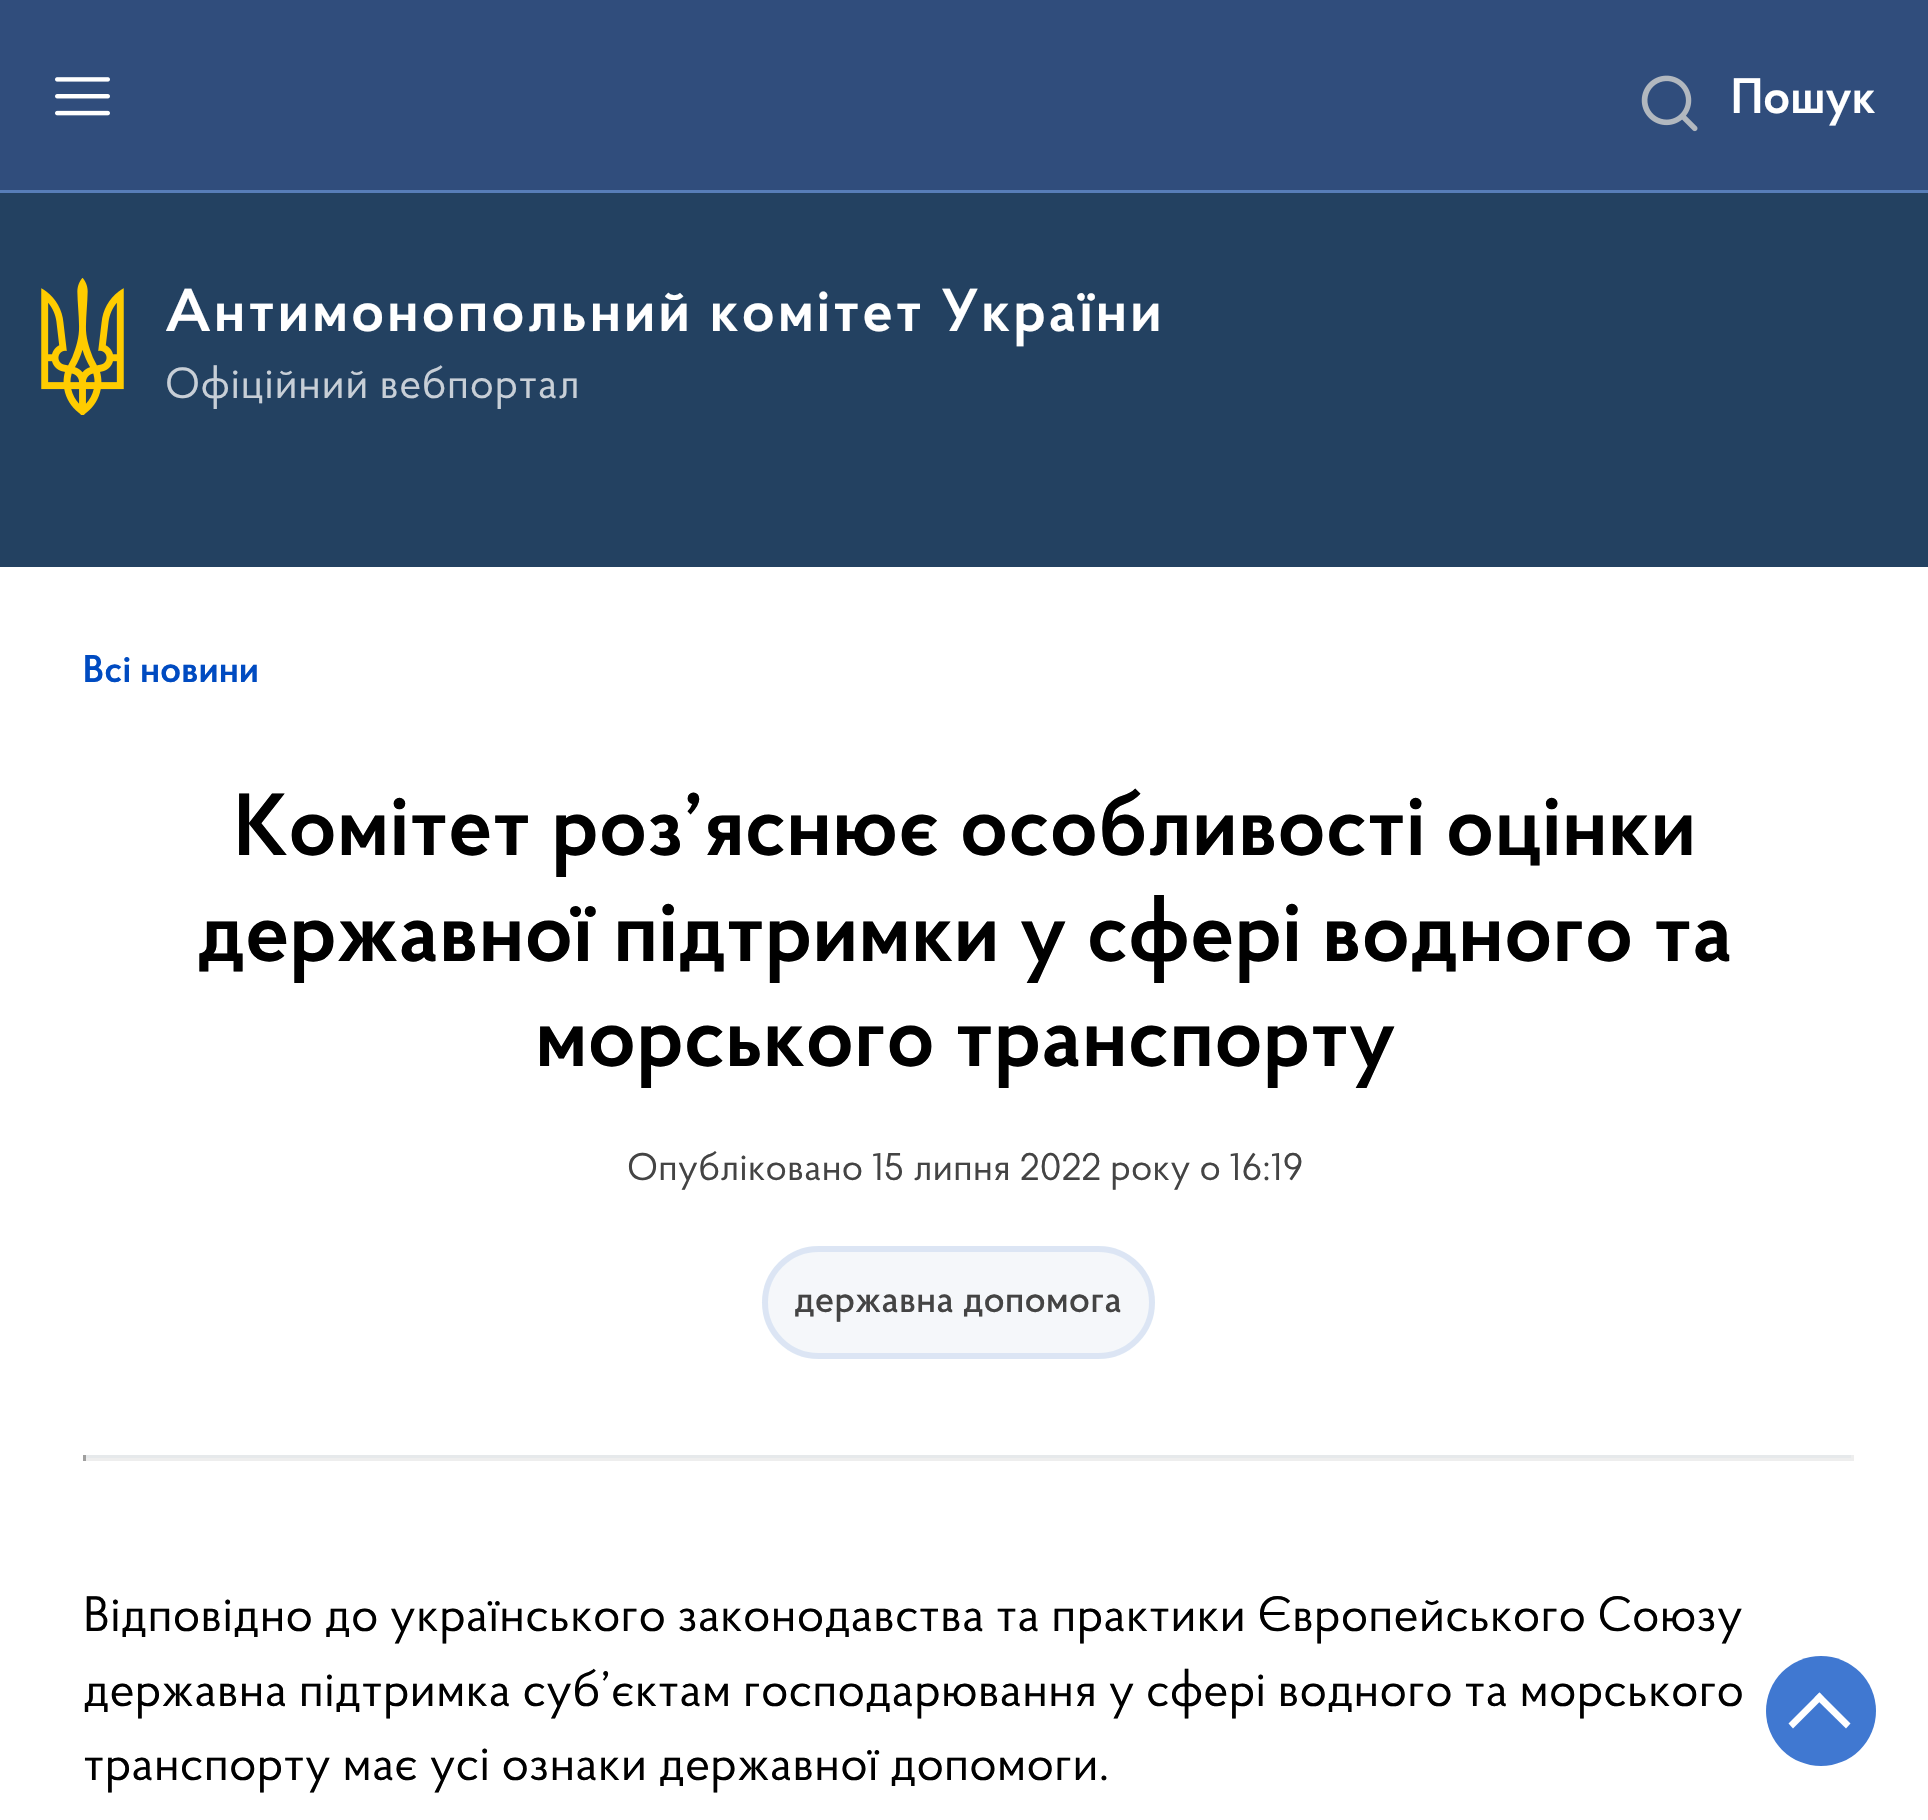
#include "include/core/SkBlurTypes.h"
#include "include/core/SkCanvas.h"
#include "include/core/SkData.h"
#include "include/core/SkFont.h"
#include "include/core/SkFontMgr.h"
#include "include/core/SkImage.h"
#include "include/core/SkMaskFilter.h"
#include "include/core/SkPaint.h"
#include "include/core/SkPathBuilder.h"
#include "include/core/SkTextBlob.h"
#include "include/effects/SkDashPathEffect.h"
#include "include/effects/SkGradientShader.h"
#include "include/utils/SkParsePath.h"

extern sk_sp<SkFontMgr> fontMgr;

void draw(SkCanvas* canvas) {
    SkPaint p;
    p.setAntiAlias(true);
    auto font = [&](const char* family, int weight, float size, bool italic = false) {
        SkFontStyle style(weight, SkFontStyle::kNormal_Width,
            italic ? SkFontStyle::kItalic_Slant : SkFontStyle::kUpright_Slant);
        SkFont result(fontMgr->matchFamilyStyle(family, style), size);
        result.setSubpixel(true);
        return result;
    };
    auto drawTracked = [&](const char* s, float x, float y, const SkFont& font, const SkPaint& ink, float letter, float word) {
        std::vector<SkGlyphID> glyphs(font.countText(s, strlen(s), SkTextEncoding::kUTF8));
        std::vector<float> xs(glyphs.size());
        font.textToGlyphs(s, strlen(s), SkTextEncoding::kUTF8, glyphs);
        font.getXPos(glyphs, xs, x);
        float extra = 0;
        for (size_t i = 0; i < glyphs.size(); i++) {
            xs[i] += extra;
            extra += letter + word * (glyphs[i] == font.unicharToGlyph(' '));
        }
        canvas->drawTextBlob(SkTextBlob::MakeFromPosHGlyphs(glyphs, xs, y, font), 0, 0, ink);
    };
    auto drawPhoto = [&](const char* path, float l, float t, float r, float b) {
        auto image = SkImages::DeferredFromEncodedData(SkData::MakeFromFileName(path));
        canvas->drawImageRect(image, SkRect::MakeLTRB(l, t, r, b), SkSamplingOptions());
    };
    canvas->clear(0xFFFFFFFF);
    {
        const struct { float l, t, r, b; SkColor color; } items[] = {
            {0, 193, 1928, 567, 0xFF234161},
            {0, 0, 1928, 190, 0xFF304D7C},
            {0, 190, 1928, 193, 0xFF577DB8},
        };
        for (auto [l, t, r, b, color] : items) {
            p.setColor(color);
            canvas->drawRect(SkRect::MakeLTRB(l, t, r, b), p);
        }
    }
    drawPhoto("media/1.png", 55, 77, 110, 116);
    drawPhoto("media/2.png", 1641, 75, 1698, 132);
    auto font1 = font("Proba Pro", 600, 49.5f);
    p.setColor(0xFFFFFFFF);
    canvas->drawString("Пошук", 1731, 113, font1, p);
    drawPhoto("media/3.png", 41, 278, 124, 415);
    auto font2 = font("Proba Pro", 600, 60.5f);
    drawTracked("Антимонопольний комітет України", 165, 331, font2, p, 2.75f, 0);
    auto font3 = font("Proba Pro", 400, 43.5f);
    p.setColor(0xFFC8CFD7);
    drawTracked("Офіційний вебпортал", 165, 398, font3, p, 0.5f, 0);
    auto font4 = font("Proba Pro", 600, 38.5f);
    p.setColor(0xFF004BC1);
    canvas->drawString("Всі новини", 83, 682, font4, p);
    auto font5 = font("Proba Pro", 600, 88);
    p.setColor(0xFF000000);
    {
        const struct { const char* s; float x, y; } items[] = {
            {"Комітет роз’яснює особливості оцінки", 234, 855},
            {"державної підтримки у сфері водного та", 197, 961},
            {"морського транспорту", 535, 1066},
        };
        for (auto [s, x, y] : items) {
            canvas->drawString(s, x, y, font5, p);
        }
    }
    auto font6 = font("Proba Pro", 400, 38.5f);
    p.setColor(0xFF444444);
    canvas->drawString("Опубліковано 15 липня 2022 року о 16:19", 627, 1180, font6, p);
    p.setColor(0xFFF5F7FA);
    canvas->drawRoundRect(SkRect::MakeLTRB(762, 1246, 1155, 1359), 56.5f, 56.5f, p);
    p.setStyle(SkPaint::kStroke_Style);
    p.setStrokeWidth(6);
    p.setColor(0x1A004BC1);
    canvas->drawRoundRect(SkRect::MakeLTRB(765, 1249, 1152, 1356), 53.5f, 53.5f, p);
    auto font7 = font("Proba Pro", 500, 38.5f);
    p.setStyle(SkPaint::kFill_Style);
    p.setColor(0xFF444444);
    canvas->drawString("державна допомога", 794, 1312, font7, p);
    {
        const struct { float l, t, r, b; SkColor color; } items[] = {
            {83, 1455, 1854, 1458, 0xFFE6E9EB},
            {1851, 1455, 1854, 1461, 0xFFEEEEEE},
            {83, 1458, 1854, 1461, 0xFFEEEEEE},
            {83, 1455, 86, 1461, 0xFF9F9F9F},
        };
        for (auto [l, t, r, b, color] : items) {
            p.setColor(color);
            canvas->drawRect(SkRect::MakeLTRB(l, t, r, b), p);
        }
    }
    auto font8 = font("Proba Pro", 400, 49.5f);
    p.setColor(0xFF000000);
    {
        const struct { const char* s; float x, y; } items[] = {
            {"Відповідно до українського законодавства та практики Європейського Союзу", 83, 1631},
            {"державна підтримка суб’єктам господарювання у сфері водного та морського", 83, 1706},
            {"транспорту має усі ознаки державної допомоги.", 83, 1780},
        };
        for (auto [s, x, y] : items) {
            canvas->drawString(s, x, y, font8, p);
        }
    }
    p.setColor(0xFF4078D1);
    canvas->drawCircle(1821, 1711, 55, p);
    p.setColor(0xFFFFFFFF);
    canvas->drawPath(SkPathBuilder().moveTo(1814.5f, 1697.5f).lineTo(1819.5f, 1692.5f).lineTo(1850.5f, 1723.5f).lineTo(1846, 1728.5f).close().detach(), p);
    canvas->drawPath(SkPathBuilder().moveTo(1819.5f, 1692.5f).lineTo(1824, 1697.5f).lineTo(1793, 1728.5f).lineTo(1788.5f, 1723.5f).close().detach(), p);
}
